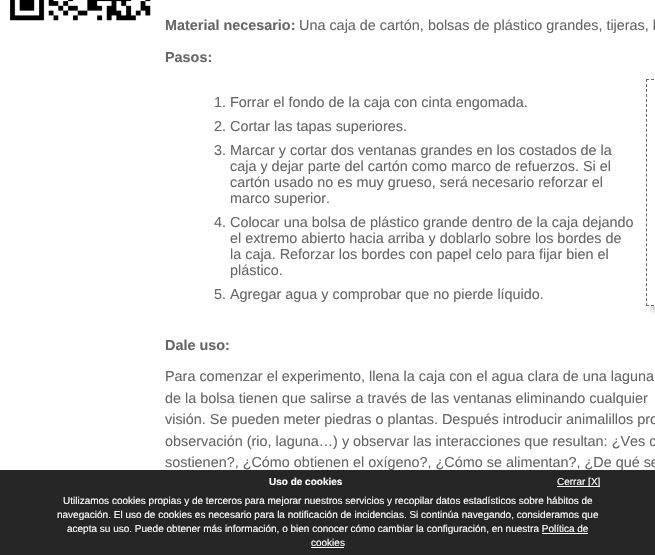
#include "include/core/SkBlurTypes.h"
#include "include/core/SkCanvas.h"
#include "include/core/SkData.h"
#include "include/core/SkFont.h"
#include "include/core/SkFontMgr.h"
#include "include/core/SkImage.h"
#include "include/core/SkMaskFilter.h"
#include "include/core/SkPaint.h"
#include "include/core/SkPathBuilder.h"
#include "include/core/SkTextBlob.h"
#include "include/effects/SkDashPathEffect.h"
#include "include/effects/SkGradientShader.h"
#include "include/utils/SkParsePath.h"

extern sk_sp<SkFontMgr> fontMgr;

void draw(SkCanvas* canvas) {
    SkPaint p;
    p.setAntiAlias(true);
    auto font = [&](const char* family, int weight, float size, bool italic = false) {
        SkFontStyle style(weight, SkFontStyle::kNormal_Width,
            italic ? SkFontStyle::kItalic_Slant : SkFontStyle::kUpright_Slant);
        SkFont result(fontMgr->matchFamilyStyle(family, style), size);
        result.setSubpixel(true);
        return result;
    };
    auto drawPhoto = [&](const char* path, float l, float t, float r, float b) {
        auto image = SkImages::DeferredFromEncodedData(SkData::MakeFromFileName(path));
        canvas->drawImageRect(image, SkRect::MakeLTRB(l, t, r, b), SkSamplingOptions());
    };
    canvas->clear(0xFFFFFFFF);
    drawPhoto("media/1.png", 10, 0, 151, 21);
    auto font1 = font("Liberation Sans", 700, 14.4f);
    p.setColor(0xFF666666);
    canvas->drawString("Material necesario:", 165, 30, font1, p);
    auto font2 = font("Liberation Sans", 400, 14.4f);
    canvas->drawString("Una caja de cartón, bolsas de plástico grandes, tijeras, l", 299, 30, font2, p);
    canvas->drawString("Pasos:", 165, 62, font1, p);
    {
        const struct { const char* s; float x, y; } items[] = {
            {"1. Forrar el fondo de la caja con cinta engomada.", 214, 107},
            {"2. Cortar las tapas superiores.", 214, 131},
            {"3. Marcar y cortar dos ventanas grandes en los costados de la", 214, 155},
            {"caja y dejar parte del cartón como marco de refuerzos. Si el", 230, 171},
            {"cartón usado no es muy grueso, será necesario reforzar el", 230, 187},
            {"marco superior.", 230, 203},
            {"4. Colocar una bolsa de plástico grande dentro de la caja dejando", 214, 227},
            {"el extremo abierto hacia arriba y doblarlo sobre los bordes de", 230, 243},
            {"la caja. Reforzar los bordes con papel celo para fijar bien el", 230, 259},
            {"plástico.", 230, 275},
            {"5. Agregar agua y comprobar que no pierde líquido.", 214, 299},
        };
        for (auto [s, x, y] : items) {
            canvas->drawString(s, x, y, font2, p);
        }
    }
    canvas->save();
    canvas->clipRect(SkRect::MakeLTRB(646, 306, 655, 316));
    p.setColor(0xFFCCCCCC);
    p.setMaskFilter(SkMaskFilter::MakeBlur(kNormal_SkBlurStyle, 2.5f));
    canvas->drawRect(SkRect::MakeLTRB(651, 84, 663, 311), p);
    p.setMaskFilter(nullptr);
    canvas->restore();
    p.setStyle(SkPaint::kStroke_Style);
    p.setStrokeWidth(1);
    p.setColor(0xFF666666);
    p.setPathEffect(SkDashPathEffect::Make({{3, 2.02f}}, 0));
    canvas->drawPath(SkPathBuilder().moveTo(646, 79.5f).lineTo(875, 79.5f).detach(), p);
    p.setPathEffect(nullptr);
    p.setPathEffect(SkDashPathEffect::Make({{3, 2.02f}}, 0));
    canvas->drawPath(SkPathBuilder().moveTo(646, 305.5f).lineTo(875, 305.5f).detach(), p);
    p.setPathEffect(nullptr);
    p.setPathEffect(SkDashPathEffect::Make({{3, 1.98f}}, 0));
    canvas->drawPath(SkPathBuilder().moveTo(646.5f, 79).lineTo(646.5f, 306).detach(), p);
    p.setPathEffect(nullptr);
    p.setStyle(SkPaint::kFill_Style);
    canvas->drawString("Dale uso:", 165, 350, font1, p);
    {
        const struct { const char* s; float x, y; } items[] = {
            {"Para comenzar el experimento, llena la caja con el agua clara de una laguna", 165, 381},
            {"de la bolsa tienen que salirse a través de las ventanas eliminando cualquier", 165, 403},
            {"visión. Se pueden meter piedras o plantas. Después introducir animalillos pro", 165, 424},
            {"observación (rio, laguna…) y observar las interacciones que resultan: ¿Ves c", 165, 446},
            {"sostienen?, ¿Cómo obtienen el oxígeno?, ¿Cómo se alimentan?, ¿De qué se", 165, 467},
        };
        for (auto [s, x, y] : items) {
            canvas->drawString(s, x, y, font2, p);
        }
    }
    p.setColor(0xD9000000);
    canvas->drawRect(SkRect::MakeLTRB(0, 470, 655, 555), p);
    auto font3 = font("Liberation Sans", 700, 10);
    p.setColor(0xFFFFFFFF);
    canvas->drawString("Uso de cookies", 269, 485, font3, p);
    canvas->drawRect(SkRect::MakeLTRB(557, 486, 600, 487), p);
    auto font4 = font("Liberation Sans", 400, 10);
    {
        const struct { const char* s; float x, y; } items[] = {
            {"Cerrar [X]", 557, 485},
            {"Utilizamos cookies propias y de terceros para mejorar nuestros servicios y recopilar datos estadísticos sobre hábitos de", 63, 504},
            {"navegación. El uso de cookies es necesario para la notificación de incidencias. Si continúa navegando, consideramos que", 57, 518},
            {"acepta su uso. Puede obtener más información, o bien conocer cómo cambiar la configuración, en nuestra Política de", 67, 532},
            {"cookies", 311, 546},
        };
        for (auto [s, x, y] : items) {
            canvas->drawString(s, x, y, font4, p);
        }
    }
    canvas->drawRect(SkRect::MakeLTRB(542, 533, 588, 534), p);
    canvas->drawRect(SkRect::MakeLTRB(311, 547, 344, 548), p);
}
